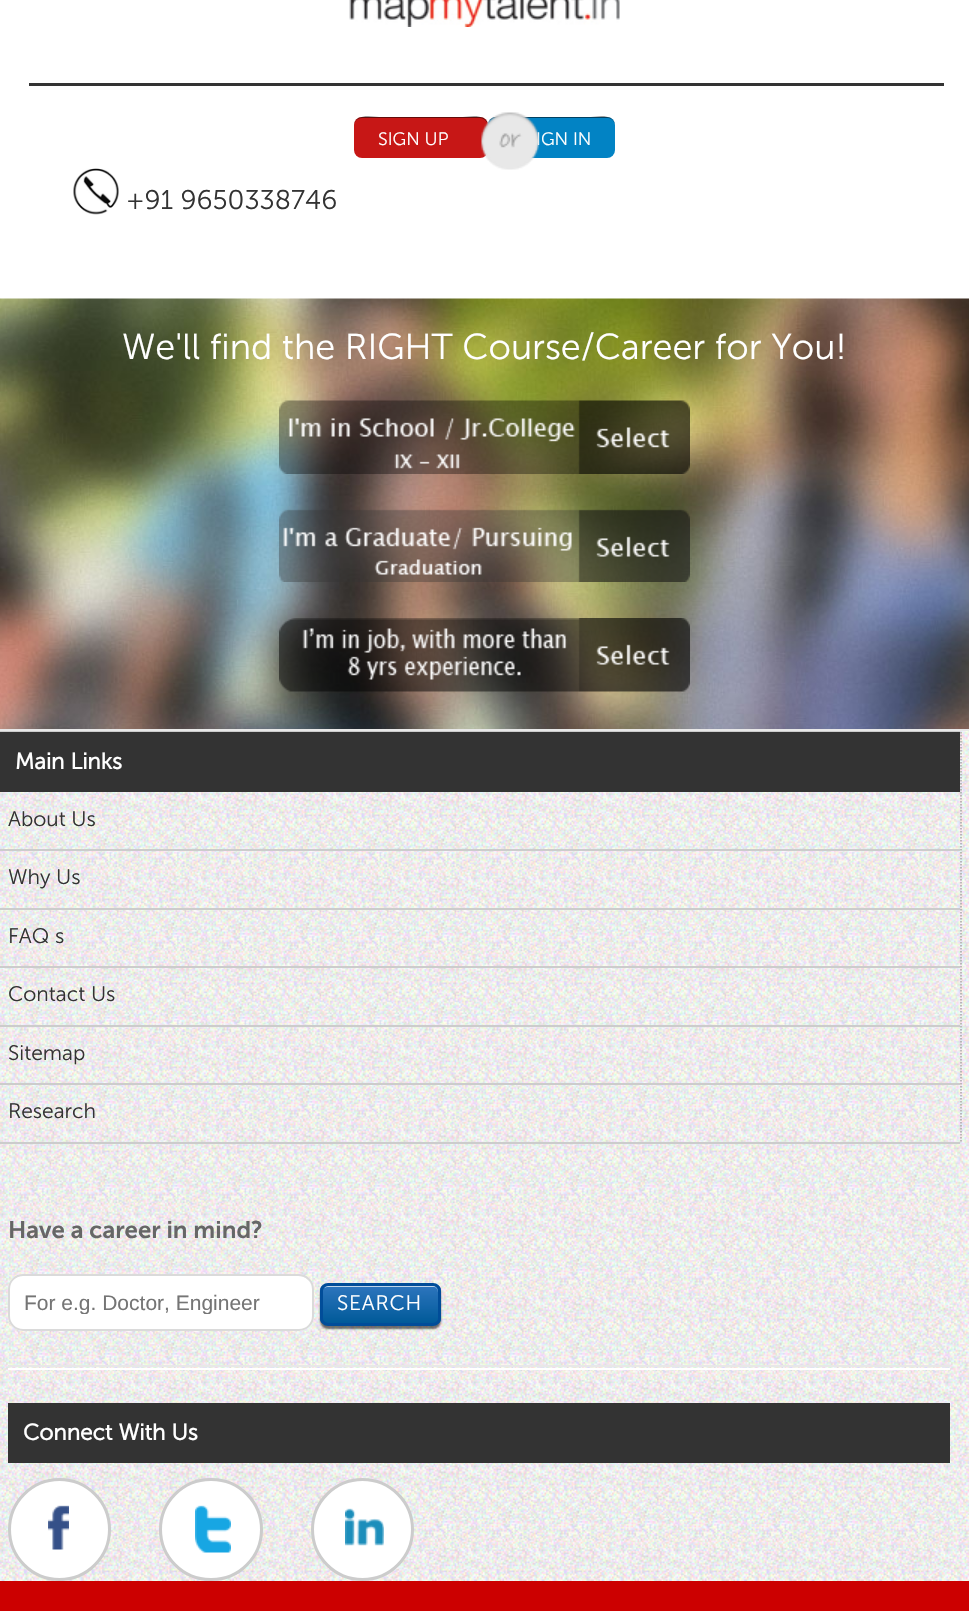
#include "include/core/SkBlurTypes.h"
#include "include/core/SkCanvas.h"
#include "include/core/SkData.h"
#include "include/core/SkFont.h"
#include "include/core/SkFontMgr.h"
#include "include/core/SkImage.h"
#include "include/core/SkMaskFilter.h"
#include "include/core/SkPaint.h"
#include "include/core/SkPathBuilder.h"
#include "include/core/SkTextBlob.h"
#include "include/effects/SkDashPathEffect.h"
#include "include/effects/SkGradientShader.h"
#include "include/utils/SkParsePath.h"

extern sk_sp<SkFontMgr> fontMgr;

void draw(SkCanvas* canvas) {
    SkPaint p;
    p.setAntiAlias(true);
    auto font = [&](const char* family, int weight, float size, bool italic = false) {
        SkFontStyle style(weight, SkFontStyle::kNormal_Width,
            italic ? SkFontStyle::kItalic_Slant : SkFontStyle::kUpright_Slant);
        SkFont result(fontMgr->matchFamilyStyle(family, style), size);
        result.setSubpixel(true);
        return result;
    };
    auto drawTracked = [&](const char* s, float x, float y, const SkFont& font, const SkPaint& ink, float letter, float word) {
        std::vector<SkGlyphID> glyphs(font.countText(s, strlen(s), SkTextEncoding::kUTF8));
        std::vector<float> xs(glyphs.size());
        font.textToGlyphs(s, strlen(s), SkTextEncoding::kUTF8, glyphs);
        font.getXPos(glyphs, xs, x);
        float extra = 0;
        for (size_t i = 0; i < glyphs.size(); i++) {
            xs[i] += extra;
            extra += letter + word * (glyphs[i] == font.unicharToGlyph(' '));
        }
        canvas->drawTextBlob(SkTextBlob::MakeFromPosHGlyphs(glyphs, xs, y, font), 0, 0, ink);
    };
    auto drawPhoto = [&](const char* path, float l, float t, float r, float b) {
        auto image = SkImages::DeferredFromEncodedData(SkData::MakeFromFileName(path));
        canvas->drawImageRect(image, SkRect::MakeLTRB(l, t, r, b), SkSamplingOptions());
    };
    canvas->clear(0xFFFFFFFF);
    drawPhoto("media/1.png", 349, 0, 620, 27);
    p.setColor(0xFF333333);
    canvas->drawRect(SkRect::MakeLTRB(29, 83, 944, 86), p);
    p.setColor(0xFFC71716);
    canvas->drawRoundRect(SkRect::MakeLTRB(354, 117, 488, 158), 8, 8, p);
    auto font1 = font("Museo Sans", 300, 18);
    p.setColor(0xFFFFFFFF);
    canvas->drawString("SIGN UP", 378, 145, font1, p);
    p.setColor(0x80000000);
    canvas->drawPath(SkPathBuilder().moveTo(362, 118).lineTo(480, 118).cubicTo(484, 118, 488, 122, 488, 126).cubicTo(488, 112, 468, 117, 460, 117).lineTo(382, 117).cubicTo(374, 117, 354, 112, 354, 126).cubicTo(354, 122, 357, 118, 362, 118).close().detach(), p);
    p.setColor(0xFF0283C4);
    canvas->drawRoundRect(SkRect::MakeLTRB(488, 117, 615, 158), 8, 8, p);
    p.setColor(0xFFFFFFFF);
    canvas->drawString("IGN IN", 536, 145, font1, p);
    p.setColor(0x80000000);
    canvas->drawPath(SkPathBuilder().moveTo(495, 118).lineTo(608, 118).cubicTo(612, 118, 615, 122, 615, 126).cubicTo(615, 112, 596, 117, 588, 117).lineTo(514, 117).cubicTo(507, 117, 488, 112, 488, 126).cubicTo(488, 122, 491, 118, 495, 118).close().detach(), p);
    drawPhoto("media/2.png", 481, 112, 539, 170);
    drawPhoto("media/3.png", 73, 168, 119, 215);
    auto font2 = font("Museo Sans", 300, 27);
    p.setColor(0xFF333333);
    canvas->drawString("+91 9650338746", 126, 209, font2, p);
    drawPhoto("media/4.png", 0, 298, 969, 729);
    auto font3 = font("Museo Sans", 300, 36);
    p.setColor(0xFFFFFFFF);
    canvas->drawString("We'll find the RIGHT Course/Career for You!", 122, 359, font3, p);
    drawPhoto("media/5.png", 279, 400, 690, 474);
    drawPhoto("media/6.png", 279, 509, 690, 582);
    drawPhoto("media/7.png", 279, 618, 690, 692);
    drawPhoto("media/8.png", 0, 731, 969, 1581);
    p.setColor(0xFFE8E8E8);
    canvas->drawRect(SkRect::MakeLTRB(0, 729, 969, 731), p);
    p.setColor(0xFFCCCCCC);
    canvas->drawRect(SkRect::MakeLTRB(0, 731, 960, 732), p);
    p.setStyle(SkPaint::kStroke_Style);
    p.setStrokeWidth(1.5f);
    p.setColor(0xFFA9A9A9);
    p.setPathEffect(SkDashPathEffect::Make({{1.5f, 1.5f}}, 0));
    canvas->drawPath(SkPathBuilder().moveTo(961, 732).lineTo(961, 1143).detach(), p);
    p.setPathEffect(nullptr);
    p.setStyle(SkPaint::kFill_Style);
    p.setColor(0xFF333333);
    canvas->drawRect(SkRect::MakeLTRB(0, 732, 960, 792), p);
    auto font4 = font("Museo Sans", 700, 22.5f);
    p.setColor(0xFFFFFFFF);
    canvas->drawString("Main Links", 15, 769, font4, p);
    p.setColor(0xFFCCCCCC);
    canvas->drawRect(SkRect::MakeLTRB(0, 849, 960, 851), p);
    auto font5 = font("Museo Sans", 300, 21);
    p.setColor(0xFF333333);
    canvas->drawString("About Us", 8, 826, font5, p);
    p.setColor(0xFFCCCCCC);
    canvas->drawRect(SkRect::MakeLTRB(0, 908, 960, 910), p);
    p.setColor(0xFF333333);
    canvas->drawString("Why Us", 8, 884, font5, p);
    p.setColor(0xFFCCCCCC);
    canvas->drawRect(SkRect::MakeLTRB(0, 966, 960, 968), p);
    p.setColor(0xFF333333);
    canvas->drawString("FAQ s", 8, 943, font5, p);
    p.setColor(0xFFCCCCCC);
    canvas->drawRect(SkRect::MakeLTRB(0, 1025, 960, 1027), p);
    p.setColor(0xFF333333);
    canvas->drawString("Contact Us", 8, 1001, font5, p);
    p.setColor(0xFFCCCCCC);
    canvas->drawRect(SkRect::MakeLTRB(0, 1083, 960, 1085), p);
    p.setColor(0xFF333333);
    canvas->drawString("Sitemap", 8, 1060, font5, p);
    p.setColor(0xFFCCCCCC);
    canvas->drawRect(SkRect::MakeLTRB(0, 1142, 960, 1144), p);
    p.setColor(0xFF333333);
    canvas->drawString("Research", 8, 1118, font5, p);
    auto font6 = font("Museo Sans", 600, 24);
    p.setColor(0xFF666666);
    canvas->drawString("Have a career in mind?", 8, 1238, font6, p);
    p.setColor(0xFFFFFFFF);
    canvas->drawRoundRect(SkRect::MakeLTRB(8, 1274, 314, 1331), 15, 15, p);
    p.setColor(0xFFE6E6E6);
    canvas->drawPath(SkPathBuilder().moveTo(22, 1276).lineTo(298, 1276).cubicTo(306, 1276, 312, 1282, 312, 1289).cubicTo(312, 1281, 306, 1275, 298, 1275).lineTo(23, 1275).cubicTo(15, 1275, 9, 1281, 9, 1289).cubicTo(9, 1282, 15, 1276, 22, 1276).close().detach(), p);
    p.setStyle(SkPaint::kStroke_Style);
    p.setStrokeWidth(2);
    p.setColor(0xFFDADADA);
    canvas->drawRoundRect(SkRect::MakeLTRB(9, 1275, 313, 1330), 14, 14, p);
    canvas->save();
    canvas->clipRect(SkRect::MakeLTRB(24, 1290, 296, 1314));
    auto font7 = font("Liberation Sans", 400, 21);
    p.setStyle(SkPaint::kFill_Style);
    p.setColor(0xFF757575);
    canvas->drawString("For e.g. Doctor, Engineer", 24, 1310, font7, p);
    canvas->restore();
    p.setColor(0x8C000000);
    p.setMaskFilter(SkMaskFilter::MakeBlur(kNormal_SkBlurStyle, 1));
    canvas->drawRoundRect(SkRect::MakeLTRB(320, 1286, 441, 1329), 8, 8, p);
    p.setMaskFilter(nullptr);
    canvas->save();
    canvas->clipPath(SkPathBuilder().moveTo(328, 1283).lineTo(433, 1283).cubicTo(437.5f, 1283, 441, 1286.5f, 441, 1291).lineTo(441, 1318).cubicTo(441, 1322.5f, 437.5f, 1326, 433, 1326).lineTo(328, 1326).cubicTo(323.5f, 1326, 320, 1322.5f, 320, 1318).lineTo(320, 1291).cubicTo(320, 1286.5f, 323.5f, 1283, 328, 1283).close().detach(), true);
    {
        const SkColor colors[] = {0xFF2D75BE, 0xFF005A99};
        const float stops[] = {0, 1};
        const SkPoint ends[] = {{380, 1286}, {380, 1323}};
        p.setShader(SkGradientShader::MakeLinear(ends, colors, stops, 2, SkTileMode::kClamp));
        p.setAlpha(255);
    }
    canvas->drawRect(SkRect::MakeLTRB(320, 1286, 441, 1323), p);
    canvas->restore();
    p.setShader(nullptr);
    p.setColor(0xFFC0D6EB);
    canvas->drawPath(SkPathBuilder().moveTo(327, 1287).lineTo(434, 1287).cubicTo(436, 1287, 438, 1289, 438, 1292).lineTo(438, 1291).cubicTo(438, 1288, 436, 1286, 433, 1286).lineTo(328, 1286).cubicTo(326, 1286, 325, 1287, 324, 1288).close().detach(), p);
    p.setStyle(SkPaint::kStroke_Style);
    p.setStrokeWidth(3);
    p.setColor(0xFF014D99);
    canvas->drawRoundRect(SkRect::MakeLTRB(321.5f, 1284.5f, 439.5f, 1324.5f), 6.5f, 6.5f, p);
    p.setStyle(SkPaint::kFill_Style);
    p.setColor(0xFFFFFFFF);
    drawTracked("SEARCH", 337, 1310, font5, p, 0.75f, 0);
    {
        const struct { float l, t, r, b; SkColor color; } items[] = {
            {8, 1365, 950, 1367, 0xFFE8E8E8},
            {8, 1368, 950, 1370, 0xFFFFFFFF},
            {8, 1403, 950, 1463, 0xFF333333},
        };
        for (auto [l, t, r, b, color] : items) {
            p.setColor(color);
            canvas->drawRect(SkRect::MakeLTRB(l, t, r, b), p);
        }
    }
    p.setColor(0xFFFFFFFF);
    canvas->drawString("Connect With Us", 23, 1440, font4, p);
    canvas->drawCircle(59.5f, 1529.5f, 50, p);
    p.setStyle(SkPaint::kStroke_Style);
    p.setColor(0xFFCCCCCC);
    canvas->drawCircle(59.5f, 1529.5f, 50, p);
    drawPhoto("media/9.png", 48, 1505, 69, 1550);
    p.setStyle(SkPaint::kFill_Style);
    p.setColor(0xFFFFFFFF);
    canvas->drawRoundRect(SkRect::MakeLTRB(160.5f, 1479.5f, 261.5f, 1579.5f), 50, 50, p);
    p.setStyle(SkPaint::kStroke_Style);
    p.setColor(0xFFCCCCCC);
    canvas->drawRoundRect(SkRect::MakeLTRB(160.5f, 1479.5f, 261.5f, 1579.5f), 50, 50, p);
    drawPhoto("media/10.png", 195, 1505, 231, 1553);
    p.setStyle(SkPaint::kFill_Style);
    p.setColor(0xFFFFFFFF);
    canvas->drawCircle(362.5f, 1529.5f, 50, p);
    p.setStyle(SkPaint::kStroke_Style);
    p.setColor(0xFFCCCCCC);
    canvas->drawCircle(362.5f, 1529.5f, 50, p);
    drawPhoto("media/11.png", 345, 1508, 384, 1546);
    p.setStyle(SkPaint::kFill_Style);
    p.setColor(0xFFCC0000);
    canvas->drawRect(SkRect::MakeLTRB(0, 1581, 969, 1611), p);
}
